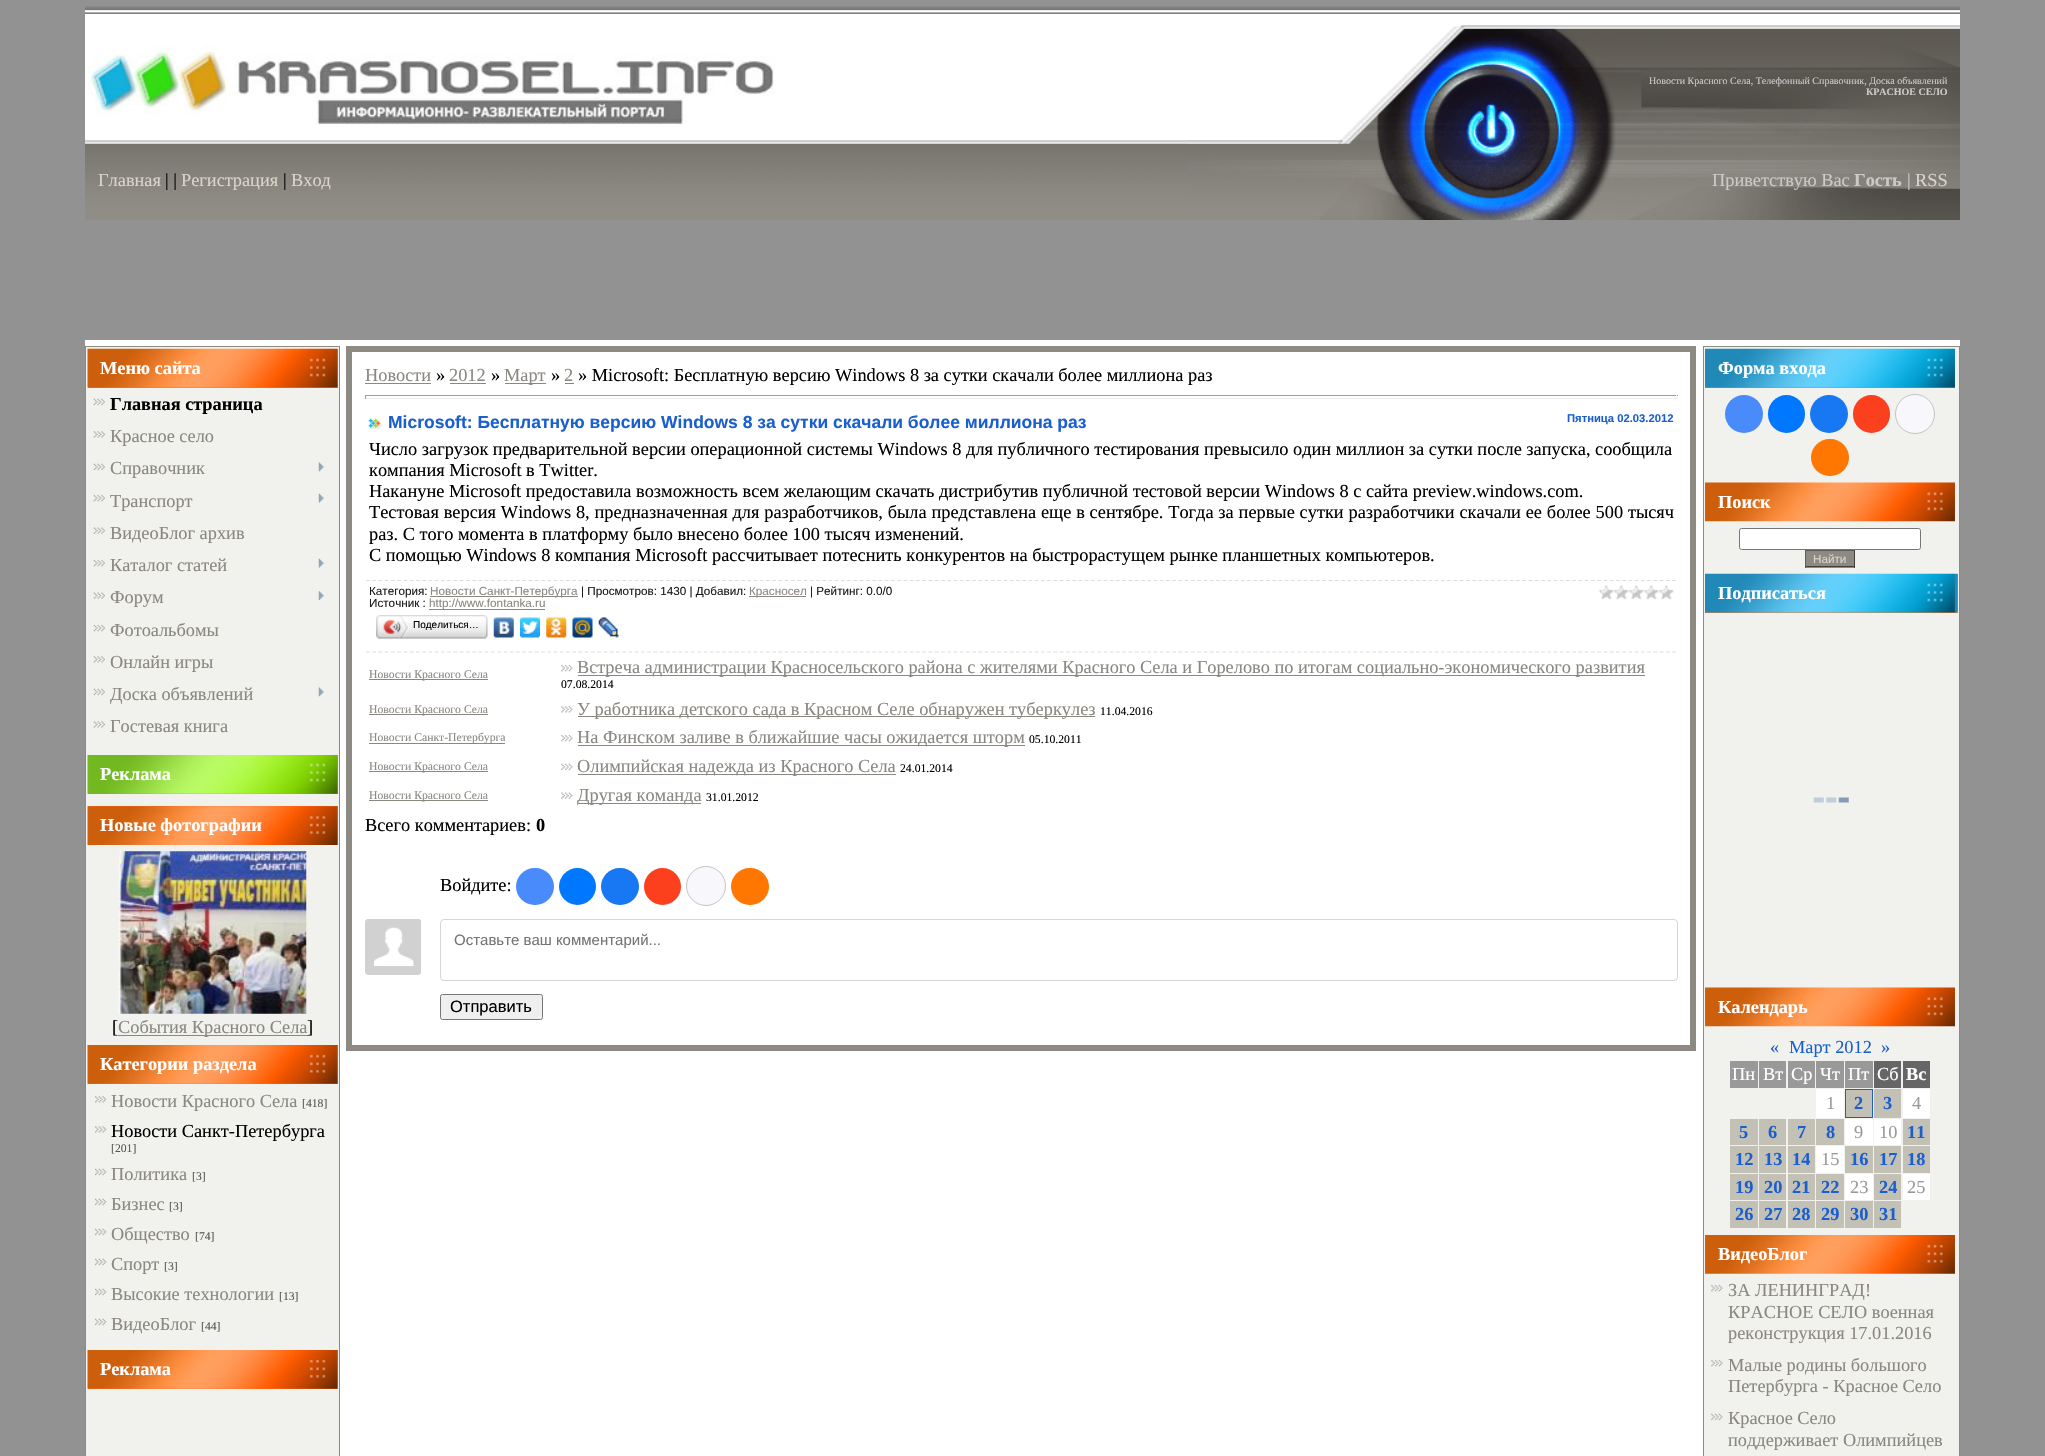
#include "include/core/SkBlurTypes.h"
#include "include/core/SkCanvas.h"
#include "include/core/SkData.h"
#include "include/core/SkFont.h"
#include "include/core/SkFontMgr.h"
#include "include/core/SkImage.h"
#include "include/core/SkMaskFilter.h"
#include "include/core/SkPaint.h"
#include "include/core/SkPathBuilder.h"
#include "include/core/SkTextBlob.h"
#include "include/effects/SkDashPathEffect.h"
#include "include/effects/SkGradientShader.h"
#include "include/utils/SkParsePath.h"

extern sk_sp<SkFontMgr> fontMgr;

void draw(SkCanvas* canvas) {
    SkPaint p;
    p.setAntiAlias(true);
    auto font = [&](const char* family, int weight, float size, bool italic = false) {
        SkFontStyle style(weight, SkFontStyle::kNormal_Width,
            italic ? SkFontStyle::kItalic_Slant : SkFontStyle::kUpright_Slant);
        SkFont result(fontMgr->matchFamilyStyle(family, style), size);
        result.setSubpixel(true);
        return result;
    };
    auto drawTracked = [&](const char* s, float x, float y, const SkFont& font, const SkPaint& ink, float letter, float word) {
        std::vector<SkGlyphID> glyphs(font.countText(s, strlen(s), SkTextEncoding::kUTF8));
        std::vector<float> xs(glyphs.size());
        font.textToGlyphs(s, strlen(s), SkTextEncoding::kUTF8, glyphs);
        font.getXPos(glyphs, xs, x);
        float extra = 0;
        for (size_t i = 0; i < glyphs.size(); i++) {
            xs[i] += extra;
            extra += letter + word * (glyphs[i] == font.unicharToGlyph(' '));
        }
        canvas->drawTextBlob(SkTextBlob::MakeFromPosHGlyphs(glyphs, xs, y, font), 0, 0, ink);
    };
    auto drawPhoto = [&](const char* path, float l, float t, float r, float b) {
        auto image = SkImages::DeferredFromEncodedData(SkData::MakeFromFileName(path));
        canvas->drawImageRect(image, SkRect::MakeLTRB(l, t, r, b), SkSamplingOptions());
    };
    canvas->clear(0xFF929292);
    drawPhoto("media/1.png", 85, 6, 1960, 25);
    drawPhoto("media/2.png", 85, 25, 1341, 220);
    p.setColor(0xFFFFFFFF);
    canvas->drawRect(SkRect::MakeLTRB(85, 139, 1339, 140), p);
    drawPhoto("media/3.png", 85, 45, 775, 125);
    drawPhoto("media/4.png", 1341, 25, 1615, 140);
    drawPhoto("media/5.png", 1615, 25, 1960, 140);
    auto font1 = font("Liberation Serif", 400, 10);
    p.setColor(0xFFCBCAC8);
    canvas->drawString("Новости Красного Села, Телефонный Справочник, Доска объявлений", 1649, 84, font1, p);
    auto font2 = font("Liberation Serif", 700, 10);
    canvas->drawString("КРАСНОЕ СЕЛО", 1866, 95, font2, p);
    drawPhoto("media/6.png", 1188, 140, 1339, 220);
    auto font3 = font("Liberation Serif", 400, 18.33f);
    p.setColor(0xFFDAD5CA);
    canvas->drawString("Главная", 98, 186, font3, p);
    p.setColor(0xFF000000);
    canvas->drawString("| |", 165, 186, font3, p);
    p.setColor(0xFFDAD5CA);
    canvas->drawString("Регистрация", 181, 186, font3, p);
    p.setColor(0xFF000000);
    canvas->drawString("|", 283, 186, font3, p);
    p.setColor(0xFFDAD5CA);
    canvas->drawString("Вход", 291, 186, font3, p);
    drawPhoto("media/7.png", 1338, 140, 1615, 220);
    drawPhoto("media/8.png", 1615, 140, 1960, 220);
    p.setColor(0xFFCBCAC8);
    canvas->drawString("Приветствую Вас", 1712, 186, font3, p);
    auto font4 = font("Liberation Serif", 700, 18.33f);
    canvas->drawString("Гость", 1854, 186, font4, p);
    canvas->drawString("|", 1907, 186, font3, p);
    p.setColor(0xFFDAD5CA);
    canvas->drawString("RSS", 1915, 186, font3, p);
    p.setColor(0xFFFFFFFF);
    canvas->drawRect(SkRect::MakeLTRB(85, 340, 1960, 1456), p);
    p.setColor(0xFFF1F1ED);
    canvas->drawRect(SkRect::MakeLTRB(85.5f, 346.5f, 339.5f, 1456.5f), p);
    p.setStyle(SkPaint::kStroke_Style);
    p.setStrokeWidth(1);
    p.setColor(0xFF8C8A82);
    canvas->drawRect(SkRect::MakeLTRB(85.5f, 346.5f, 339.5f, 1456.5f), p);
    p.setStyle(SkPaint::kFill_Style);
    p.setColor(0xFFFF7423);
    canvas->drawRect(SkRect::MakeLTRB(88, 349, 338, 388), p);
    drawPhoto("media/9.png", 87, 348, 338, 388);
    p.setColor(0xFFFFFFFF);
    canvas->drawString("Меню сайта", 100, 374, font4, p);
    drawPhoto("media/10.png", 93, 398, 105, 406);
    p.setColor(0xFF000000);
    canvas->drawString("Главная страница", 110, 410, font4, p);
    drawPhoto("media/11.png", 93, 431, 105, 438);
    p.setColor(0xFF8B8881);
    canvas->drawString("Красное село", 110, 442, font3, p);
    drawPhoto("media/10.png", 93, 463, 105, 471);
    canvas->drawString("Справочник", 110, 474, font3, p);
    drawPhoto("media/12.png", 318, 462, 324, 472);
    drawPhoto("media/13.png", 93, 494, 105, 502);
    canvas->drawString("Транспорт", 110, 507, font3, p);
    drawPhoto("media/14.png", 318, 493, 324, 503);
    drawPhoto("media/15.png", 93, 527, 105, 534);
    canvas->drawString("ВидеоБлог архив", 110, 539, font3, p);
    drawPhoto("media/13.png", 93, 559, 105, 567);
    canvas->drawString("Каталог статей", 110, 571, font3, p);
    drawPhoto("media/14.png", 318, 558, 324, 568);
    drawPhoto("media/15.png", 93, 592, 105, 599);
    canvas->drawString("Форум", 110, 603, font3, p);
    drawPhoto("media/16.png", 318, 591, 324, 600);
    drawPhoto("media/13.png", 93, 624, 105, 632);
    canvas->drawString("Фотоальбомы", 110, 636, font3, p);
    drawPhoto("media/11.png", 93, 656, 105, 663);
    canvas->drawString("Онлайн игры", 110, 668, font3, p);
    drawPhoto("media/10.png", 93, 688, 105, 696);
    canvas->drawString("Доска объявлений", 110, 700, font3, p);
    drawPhoto("media/12.png", 318, 687, 324, 697);
    drawPhoto("media/11.png", 93, 721, 105, 728);
    canvas->drawString("Гостевая книга", 110, 732, font3, p);
    p.setColor(0xFFFF7423);
    canvas->drawRect(SkRect::MakeLTRB(88, 755, 338, 794), p);
    drawPhoto("media/17.png", 87, 755, 338, 794);
    p.setColor(0xFFFFFFFF);
    canvas->drawString("Реклама", 100, 780, font4, p);
    p.setColor(0xFFFF7423);
    canvas->drawRect(SkRect::MakeLTRB(88, 806, 338, 845), p);
    drawPhoto("media/18.png", 87, 806, 338, 845);
    p.setColor(0xFFFFFFFF);
    canvas->drawString("Новые фотографии", 100, 831, font4, p);
    drawPhoto("media/19.png", 118, 851, 307, 1014);
    p.setColor(0xFF000000);
    canvas->drawString("[", 112, 1033, font3, p);
    p.setColor(0xFF8B8881);
    canvas->drawRect(SkRect::MakeLTRB(118, 1035, 308, 1036), p);
    canvas->drawString("События Красного Села", 118, 1033, font3, p);
    p.setColor(0xFF000000);
    canvas->drawString("]", 307, 1033, font3, p);
    p.setColor(0xFFFF7423);
    canvas->drawRect(SkRect::MakeLTRB(88, 1045, 338, 1084), p);
    drawPhoto("media/20.png", 87, 1045, 338, 1084);
    p.setColor(0xFFFFFFFF);
    canvas->drawString("Категории раздела", 100, 1070, font4, p);
    drawPhoto("media/21.png", 95, 1096, 107, 1103);
    p.setColor(0xFF8B8881);
    canvas->drawString("Новости Красного Села", 111, 1107, font3, p);
    auto font5 = font("Liberation Serif", 400, 11.7f);
    p.setColor(0xFF555555);
    canvas->drawString("[418]", 302, 1107, font5, p);
    drawPhoto("media/21.png", 95, 1126, 107, 1133);
    p.setColor(0xFF000000);
    canvas->drawString("Новости Санкт-Петербурга", 111, 1137, font3, p);
    p.setColor(0xFF555555);
    canvas->drawString("[201]", 111, 1152, font5, p);
    drawPhoto("media/22.png", 95, 1168, 107, 1176);
    p.setColor(0xFF8B8881);
    canvas->drawString("Политика", 111, 1180, font3, p);
    p.setColor(0xFF555555);
    canvas->drawString("[3]", 192, 1180, font5, p);
    drawPhoto("media/22.png", 95, 1198, 107, 1206);
    p.setColor(0xFF8B8881);
    canvas->drawString("Бизнес", 111, 1210, font3, p);
    p.setColor(0xFF555555);
    canvas->drawString("[3]", 169, 1210, font5, p);
    drawPhoto("media/22.png", 95, 1228, 107, 1236);
    p.setColor(0xFF8B8881);
    canvas->drawString("Общество", 111, 1240, font3, p);
    p.setColor(0xFF555555);
    canvas->drawString("[74]", 195, 1240, font5, p);
    drawPhoto("media/22.png", 95, 1258, 107, 1266);
    p.setColor(0xFF8B8881);
    canvas->drawString("Спорт", 111, 1270, font3, p);
    p.setColor(0xFF555555);
    canvas->drawString("[3]", 164, 1270, font5, p);
    drawPhoto("media/22.png", 95, 1288, 107, 1296);
    p.setColor(0xFF8B8881);
    canvas->drawString("Высокие технологии", 111, 1300, font3, p);
    p.setColor(0xFF555555);
    canvas->drawString("[13]", 279, 1300, font5, p);
    drawPhoto("media/22.png", 95, 1318, 107, 1326);
    p.setColor(0xFF8B8881);
    canvas->drawString("ВидеоБлог", 111, 1330, font3, p);
    p.setColor(0xFF555555);
    canvas->drawString("[44]", 201, 1330, font5, p);
    p.setColor(0xFFFF7423);
    canvas->drawRect(SkRect::MakeLTRB(88, 1350, 338, 1389), p);
    drawPhoto("media/20.png", 87, 1350, 338, 1389);
    p.setColor(0xFFFFFFFF);
    canvas->drawString("Реклама", 100, 1375, font4, p);
    p.setStyle(SkPaint::kStroke_Style);
    p.setStrokeWidth(6);
    p.setColor(0xFF8C8A82);
    canvas->drawRect(SkRect::MakeLTRB(349, 349, 1693, 1048), p);
    p.setStyle(SkPaint::kFill_Style);
    p.setColor(0xFF8B8881);
    canvas->drawString("Новости", 365, 381, font3, p);
    canvas->drawRect(SkRect::MakeLTRB(365, 383, 431, 384), p);
    p.setColor(0xFF000000);
    canvas->drawString("»", 436, 381, font3, p);
    p.setColor(0xFF8B8881);
    canvas->drawString("2012", 449, 381, font3, p);
    canvas->drawRect(SkRect::MakeLTRB(450, 383, 486, 384), p);
    p.setColor(0xFF000000);
    canvas->drawString("»", 491, 381, font3, p);
    p.setColor(0xFF8B8881);
    canvas->drawRect(SkRect::MakeLTRB(505, 383, 546, 384), p);
    canvas->drawString("Март", 504, 381, font3, p);
    p.setColor(0xFF000000);
    canvas->drawString("»", 551, 381, font3, p);
    p.setColor(0xFF8B8881);
    canvas->drawString("2", 564, 381, font3, p);
    canvas->drawRect(SkRect::MakeLTRB(565, 383, 574, 384), p);
    p.setColor(0xFF000000);
    canvas->drawString("» Microsoft: Бесплатную версию Windows 8 за сутки скачали более миллиона раз", 578, 381, font3, p);
    {
        const struct { float l, t, r, b; SkColor color; } items[] = {
            {365, 395, 1678, 396, 0xFF9F9F9F},
            {1676, 395, 1677, 399, 0xFFEEEEEE},
            {365, 398, 1678, 399, 0xFFEEEEEE},
            {365, 395, 366, 399, 0xFF9F9F9F},
        };
        for (auto [l, t, r, b, color] : items) {
            p.setColor(color);
            canvas->drawRect(SkRect::MakeLTRB(l, t, r, b), p);
        }
    }
    drawPhoto("media/23.png", 368, 418, 383, 430);
    auto font6 = font("Liberation Sans", 700, 17.5f);
    p.setColor(0xFF1B5FCF);
    canvas->drawString("Microsoft: Бесплатную версию Windows 8 за сутки скачали более миллиона раз", 388, 428, font6, p);
    auto font7 = font("Liberation Sans", 700, 11.25f);
    canvas->drawString("Пятница 02.03.2012", 1567, 422, font7, p);
    p.setColor(0xFF000000);
    {
        const struct { const char* s; float x, y; } items[] = {
            {"Число загрузок предварительной версии операционной системы Windows 8 для публичного тестирования превысило один миллион за сутки после запуска, сообщила", 369, 455},
            {"компания Microsoft в Twitter.", 369, 476},
            {"Накануне Microsoft предоставила возможность всем желающим скачать дистрибутив публичной тестовой версии Windows 8 с сайта preview.windows.com.", 369, 497},
        };
        for (auto [s, x, y] : items) {
            canvas->drawString(s, x, y, font3, p);
        }
    }
    drawTracked("Тестовая версия Windows 8, предназначенная для разработчиков, была представлена еще в сентябре. Тогда за первые сутки разработчики скачали ее более 500 тысяч", 369, 518, font3, p, 0, 0.25f);
    canvas->drawString("раз. С того момента в платформу было внесено более 100 тысяч изменений.", 369, 540, font3, p);
    canvas->drawString("С помощью Windows 8 компания Microsoft рассчитывает потеснить конкурентов на быстрорастущем рынке планшетных компьютеров.", 369, 561, font3, p);
    p.setStyle(SkPaint::kStroke_Style);
    p.setStrokeWidth(1.2f);
    p.setColor(0xFFDDDDDD);
    p.setPathEffect(SkDashPathEffect::Make({{3.75f, 2.5f}}, 0));
    canvas->drawPath(SkPathBuilder().moveTo(366, 580.5f).lineTo(1676, 580.5f).detach(), p);
    p.setPathEffect(nullptr);
    p.setPathEffect(SkDashPathEffect::Make({{3.75f, 2.5f}}, 0));
    canvas->drawPath(SkPathBuilder().moveTo(366, 652).lineTo(1676, 652).detach(), p);
    p.setPathEffect(nullptr);
    auto font8 = font("Liberation Sans", 400, 11.7f);
    p.setStyle(SkPaint::kFill_Style);
    p.setColor(0xFF1A1A1A);
    canvas->drawString("Категория:", 369, 595, font8, p);
    p.setColor(0xFF8B8881);
    canvas->drawRect(SkRect::MakeLTRB(430, 596, 578, 597), p);
    canvas->drawString("Новости Санкт-Петербурга", 430, 595, font8, p);
    p.setColor(0xFF1A1A1A);
    canvas->drawString("| Просмотров: 1430 | Добавил:", 581, 595, font8, p);
    p.setColor(0xFF8B8881);
    canvas->drawRect(SkRect::MakeLTRB(749, 596, 806, 597), p);
    canvas->drawString("Красносел", 749, 595, font8, p);
    p.setColor(0xFF1A1A1A);
    canvas->drawString("| Рейтинг: 0.0/0", 810, 595, font8, p);
    drawPhoto("media/24.png", 1598, 585, 1674, 600);
    canvas->drawString("Источник :", 369, 607, font8, p);
    p.setColor(0xFF8B8881);
    canvas->drawRect(SkRect::MakeLTRB(429, 609, 545, 610), p);
    canvas->drawString("http://www.fontanka.ru", 429, 607, font8, p);
    drawPhoto("media/25.png", 380, 615, 484, 639);
    drawPhoto("media/26.png", 376, 615, 380, 639);
    drawPhoto("media/27.png", 383, 616, 409, 638);
    auto font9 = font("Liberation Sans", 400, 10);
    p.setColor(0xFF000000);
    canvas->drawString("Поделиться…", 413, 628, font9, p);
    drawPhoto("media/28.png", 483, 615, 488, 639);
    drawPhoto("media/29.png", 493, 617, 514, 638);
    drawPhoto("media/30.png", 520, 617, 540, 638);
    drawPhoto("media/31.png", 546, 617, 567, 638);
    drawPhoto("media/32.png", 572, 617, 593, 638);
    drawPhoto("media/33.png", 598, 617, 619, 638);
    p.setColor(0xFF8B8881);
    canvas->drawRect(SkRect::MakeLTRB(369, 679, 488, 680), p);
    canvas->drawString("Новости Красного Села", 369, 678, font5, p);
    drawPhoto("media/34.png", 561, 664, 573, 672);
    canvas->drawRect(SkRect::MakeLTRB(578, 675, 1645, 676), p);
    canvas->drawString("Встреча администрации Красносельского района с жителями Красного Села и Горелово по итогам социально-экономического развития", 577, 673, font3, p);
    p.setColor(0xFF000000);
    canvas->drawString("07.08.2014", 561, 688, font5, p);
    p.setColor(0xFF8B8881);
    canvas->drawRect(SkRect::MakeLTRB(369, 714, 488, 715), p);
    canvas->drawString("Новости Красного Села", 369, 713, font5, p);
    drawPhoto("media/35.png", 561, 706, 573, 713);
    canvas->drawRect(SkRect::MakeLTRB(578, 716, 1095, 717), p);
    canvas->drawString("У работника детского сада в Красном Селе обнаружен туберкулез", 577, 715, font3, p);
    p.setColor(0xFF000000);
    canvas->drawString("11.04.2016", 1100, 715, font5, p);
    p.setColor(0xFF8B8881);
    canvas->drawRect(SkRect::MakeLTRB(369, 743, 505, 744), p);
    canvas->drawString("Новости Санкт-Петербурга", 369, 741, font5, p);
    drawPhoto("media/34.png", 561, 734, 573, 742);
    canvas->drawRect(SkRect::MakeLTRB(578, 745, 1025, 746), p);
    canvas->drawString("На Финском заливе в ближайшие часы ожидается шторм", 577, 743, font3, p);
    p.setColor(0xFF000000);
    canvas->drawString("05.10.2011", 1029, 743, font5, p);
    p.setColor(0xFF8B8881);
    canvas->drawRect(SkRect::MakeLTRB(369, 771, 488, 772), p);
    canvas->drawString("Новости Красного Села", 369, 770, font5, p);
    drawPhoto("media/36.png", 561, 763, 573, 771);
    canvas->drawRect(SkRect::MakeLTRB(578, 774, 896, 775), p);
    canvas->drawString("Олимпийская надежда из Красного Села", 577, 772, font3, p);
    p.setColor(0xFF000000);
    canvas->drawString("24.01.2014", 900, 772, font5, p);
    p.setColor(0xFF8B8881);
    canvas->drawRect(SkRect::MakeLTRB(369, 800, 488, 801), p);
    canvas->drawString("Новости Красного Села", 369, 799, font5, p);
    drawPhoto("media/37.png", 561, 792, 573, 799);
    canvas->drawRect(SkRect::MakeLTRB(578, 803, 701, 804), p);
    canvas->drawString("Другая команда", 577, 801, font3, p);
    p.setColor(0xFF000000);
    canvas->drawString("31.01.2012", 706, 801, font5, p);
    canvas->drawString("Всего комментариев:", 365, 831, font3, p);
    canvas->drawString("0", 536, 831, font4, p);
    canvas->drawString("Войдите:", 440, 891, font3, p);
    p.setColor(0xFF498BFA);
    canvas->drawRoundRect(SkRect::MakeLTRB(516, 868, 554, 905), 18.5f, 18.5f, p);
    p.setColor(0xFF0077FF);
    canvas->drawCircle(577.5f, 886.5f, 18.5f, p);
    p.setColor(0xFF1877F2);
    canvas->drawRoundRect(SkRect::MakeLTRB(601, 868, 639, 905), 18.5f, 18.5f, p);
    p.setColor(0xFFFC3F1D);
    canvas->drawCircle(662.5f, 886.5f, 18.5f, p);
    p.setColor(0xFFF8F8FC);
    canvas->drawCircle(706, 886, 19.5f, p);
    p.setStyle(SkPaint::kStroke_Style);
    p.setStrokeWidth(1);
    p.setColor(0xFFC4C4C4);
    canvas->drawCircle(706, 886, 19.5f, p);
    p.setStyle(SkPaint::kFill_Style);
    p.setColor(0xFFFF7700);
    canvas->drawRoundRect(SkRect::MakeLTRB(731, 868, 769, 905), 18.5f, 18.5f, p);
    drawPhoto("media/38.png", 365, 919, 421, 975);
    p.setStyle(SkPaint::kStroke_Style);
    p.setColor(0xFFD6D6D6);
    canvas->drawRoundRect(SkRect::MakeLTRB(440.5f, 919.5f, 1677.5f, 980.5f), 3.5f, 3.5f, p);
    auto font10 = font("Liberation Sans", 400, 15);
    p.setStyle(SkPaint::kFill_Style);
    p.setColor(0xFF757575);
    canvas->drawString("Оставьте ваш комментарий...", 454, 945, font10, p);
    p.setColor(0xFFEFEFEF);
    canvas->drawRoundRect(SkRect::MakeLTRB(440.5f, 994.5f, 542.5f, 1019.5f), 2, 2, p);
    p.setStyle(SkPaint::kStroke_Style);
    p.setColor(0xFF767676);
    canvas->drawRoundRect(SkRect::MakeLTRB(440.5f, 994.5f, 542.5f, 1019.5f), 2, 2, p);
    auto font11 = font("Liberation Sans", 400, 16.5f);
    p.setStyle(SkPaint::kFill_Style);
    p.setColor(0xFF000000);
    canvas->drawString("Отправить", 450, 1012, font11, p);
    p.setColor(0xFFF1F1ED);
    canvas->drawRect(SkRect::MakeLTRB(1703.5f, 346.5f, 1959.5f, 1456.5f), p);
    p.setStyle(SkPaint::kStroke_Style);
    p.setColor(0xFF8C8A82);
    canvas->drawRect(SkRect::MakeLTRB(1703.5f, 346.5f, 1959.5f, 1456.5f), p);
    p.setStyle(SkPaint::kFill_Style);
    p.setColor(0xFFFF7423);
    canvas->drawRect(SkRect::MakeLTRB(1705, 387, 1955, 388), p);
    drawPhoto("media/39.png", 1705, 348, 1955, 388);
    p.setColor(0xFFFFFFFF);
    canvas->drawString("Форма входа", 1718, 374, font4, p);
    p.setColor(0xFF498BFA);
    canvas->drawCircle(1744, 414, 19, p);
    p.setColor(0xFF0077FF);
    canvas->drawRoundRect(SkRect::MakeLTRB(1768, 395, 1805, 433), 18.5f, 18.5f, p);
    p.setColor(0xFF1877F2);
    canvas->drawCircle(1829, 414, 19, p);
    p.setColor(0xFFFC3F1D);
    canvas->drawRoundRect(SkRect::MakeLTRB(1853, 395, 1890, 433), 18.5f, 18.5f, p);
    p.setColor(0xFFF8F8FC);
    canvas->drawCircle(1915, 414, 19.5f, p);
    p.setStyle(SkPaint::kStroke_Style);
    p.setColor(0xFFC4C4C4);
    canvas->drawCircle(1915, 414, 19.5f, p);
    p.setStyle(SkPaint::kFill_Style);
    p.setColor(0xFFFF7700);
    canvas->drawRoundRect(SkRect::MakeLTRB(1811, 439, 1849, 476), 18.5f, 18.5f, p);
    drawPhoto("media/40.png", 1705, 482, 1955, 522);
    p.setColor(0xFFFFFFFF);
    canvas->drawString("Поиск", 1718, 508, font4, p);
    canvas->drawRoundRect(SkRect::MakeLTRB(1739.5f, 528.5f, 1920.5f, 549.5f), 2, 2, p);
    p.setStyle(SkPaint::kStroke_Style);
    p.setColor(0xFF767676);
    canvas->drawRoundRect(SkRect::MakeLTRB(1739.5f, 528.5f, 1920.5f, 549.5f), 2, 2, p);
    p.setStyle(SkPaint::kFill_Style);
    {
        const struct { float l, t, r, b; SkColor color; } items[] = {
            {1806, 551, 1854, 568, 0xFF8D8A83},
            {1805, 550, 1855, 551, 0xFF615E58},
            {1854, 550, 1855, 568, 0xFF413F3B},
            {1805, 566, 1855, 567, 0xFF413F3B},
            {1805, 550, 1806, 568, 0xFF615E58},
        };
        for (auto [l, t, r, b, color] : items) {
            p.setColor(color);
            canvas->drawRect(SkRect::MakeLTRB(l, t, r, b), p);
        }
    }
    p.setColor(0xFFDAD5CA);
    canvas->drawString("Найти", 1813, 563, font8, p);
    p.setColor(0xFFFF7423);
    canvas->drawRect(SkRect::MakeLTRB(1705, 574, 1958, 613), p);
    drawPhoto("media/41.png", 1705, 573, 1958, 613);
    p.setColor(0xFFFFFFFF);
    canvas->drawString("Подписаться", 1718, 599, font4, p);
    drawPhoto("media/42.png", 1813, 797, 1849, 803);
    drawPhoto("media/40.png", 1705, 987, 1955, 1027);
    canvas->drawString("Календарь", 1718, 1013, font4, p);
    p.setColor(0xFF1B5FCF);
    {
        const struct { const char* s; float x, y; } items[] = {
            {"«", 1770, 1053},
            {"Март 2012", 1789, 1053},
            {"»", 1881, 1053},
        };
        for (auto [s, x, y] : items) {
            canvas->drawString(s, x, y, font3, p);
        }
    }
    p.setColor(0xFF999999);
    canvas->drawRect(SkRect::MakeLTRB(1730, 1061, 1758, 1088), p);
    p.setColor(0xFFFFFFFF);
    canvas->drawString("Пн", 1732, 1080, font3, p);
    p.setColor(0xFF999999);
    canvas->drawRect(SkRect::MakeLTRB(1759, 1061, 1786, 1088), p);
    p.setColor(0xFFFFFFFF);
    canvas->drawString("Вт", 1763, 1080, font3, p);
    p.setColor(0xFF999999);
    canvas->drawRect(SkRect::MakeLTRB(1788, 1061, 1815, 1088), p);
    p.setColor(0xFFFFFFFF);
    canvas->drawString("Ср", 1791, 1080, font3, p);
    p.setColor(0xFF999999);
    canvas->drawRect(SkRect::MakeLTRB(1816, 1061, 1844, 1088), p);
    p.setColor(0xFFFFFFFF);
    canvas->drawString("Чт", 1820, 1080, font3, p);
    p.setColor(0xFF999999);
    canvas->drawRect(SkRect::MakeLTRB(1845, 1061, 1873, 1088), p);
    p.setColor(0xFFFFFFFF);
    canvas->drawString("Пт", 1848, 1080, font3, p);
    p.setColor(0xFF666666);
    canvas->drawRect(SkRect::MakeLTRB(1874, 1061, 1901, 1088), p);
    p.setColor(0xFFFFFFFF);
    canvas->drawString("Сб", 1877, 1080, font3, p);
    p.setColor(0xFF666666);
    canvas->drawRect(SkRect::MakeLTRB(1903, 1061, 1930, 1088), p);
    p.setColor(0xFFFFFFFF);
    canvas->drawString("Вс", 1906, 1080, font4, p);
    canvas->drawRect(SkRect::MakeLTRB(1816, 1089, 1844, 1118), p);
    p.setColor(0xFF999999);
    canvas->drawString("1", 1826, 1109, font3, p);
    p.setColor(0xFFC3C0B5);
    canvas->drawRect(SkRect::MakeLTRB(1845.5f, 1089.5f, 1872.5f, 1117.5f), p);
    p.setStyle(SkPaint::kStroke_Style);
    p.setColor(0xFF1B5FCF);
    canvas->drawRect(SkRect::MakeLTRB(1845.5f, 1089.5f, 1872.5f, 1117.5f), p);
    p.setStyle(SkPaint::kFill_Style);
    canvas->drawString("2", 1854, 1109, font4, p);
    p.setColor(0xFFC3C0B5);
    canvas->drawRect(SkRect::MakeLTRB(1874, 1089, 1901, 1118), p);
    p.setColor(0xFF1B5FCF);
    canvas->drawString("3", 1883, 1109, font4, p);
    p.setColor(0xFFFFFFFF);
    canvas->drawRect(SkRect::MakeLTRB(1903, 1089, 1930, 1118), p);
    p.setColor(0xFF999999);
    canvas->drawString("4", 1912, 1109, font3, p);
    p.setColor(0xFFC3C0B5);
    canvas->drawRect(SkRect::MakeLTRB(1730, 1119, 1758, 1145), p);
    p.setColor(0xFF1B5FCF);
    canvas->drawString("5", 1739, 1138, font4, p);
    p.setColor(0xFFC3C0B5);
    canvas->drawRect(SkRect::MakeLTRB(1759, 1119, 1786, 1145), p);
    p.setColor(0xFF1B5FCF);
    canvas->drawString("6", 1768, 1138, font4, p);
    p.setColor(0xFFC3C0B5);
    canvas->drawRect(SkRect::MakeLTRB(1788, 1119, 1815, 1145), p);
    p.setColor(0xFF1B5FCF);
    canvas->drawString("7", 1797, 1138, font4, p);
    p.setColor(0xFFC3C0B5);
    canvas->drawRect(SkRect::MakeLTRB(1816, 1119, 1844, 1145), p);
    p.setColor(0xFF1B5FCF);
    canvas->drawString("8", 1826, 1138, font4, p);
    p.setColor(0xFFFFFFFF);
    canvas->drawRect(SkRect::MakeLTRB(1845, 1119, 1873, 1145), p);
    p.setColor(0xFF999999);
    canvas->drawString("9", 1854, 1138, font3, p);
    p.setColor(0xFFFFFFFF);
    canvas->drawRect(SkRect::MakeLTRB(1874, 1119, 1901, 1145), p);
    p.setColor(0xFF999999);
    canvas->drawString("10", 1879, 1138, font3, p);
    p.setColor(0xFFC3C0B5);
    canvas->drawRect(SkRect::MakeLTRB(1903, 1119, 1930, 1145), p);
    p.setColor(0xFF1B5FCF);
    canvas->drawString("11", 1907, 1138, font4, p);
    p.setColor(0xFFC3C0B5);
    canvas->drawRect(SkRect::MakeLTRB(1730, 1146, 1758, 1173), p);
    p.setColor(0xFF1B5FCF);
    canvas->drawString("12", 1735, 1165, font4, p);
    p.setColor(0xFFC3C0B5);
    canvas->drawRect(SkRect::MakeLTRB(1759, 1146, 1786, 1173), p);
    p.setColor(0xFF1B5FCF);
    canvas->drawString("13", 1764, 1165, font4, p);
    p.setColor(0xFFC3C0B5);
    canvas->drawRect(SkRect::MakeLTRB(1788, 1146, 1815, 1173), p);
    p.setColor(0xFF1B5FCF);
    canvas->drawString("14", 1792, 1165, font4, p);
    p.setColor(0xFFFFFFFF);
    canvas->drawRect(SkRect::MakeLTRB(1816, 1146, 1844, 1173), p);
    p.setColor(0xFF999999);
    canvas->drawString("15", 1821, 1165, font3, p);
    p.setColor(0xFFC3C0B5);
    canvas->drawRect(SkRect::MakeLTRB(1845, 1146, 1873, 1173), p);
    p.setColor(0xFF1B5FCF);
    canvas->drawString("16", 1850, 1165, font4, p);
    p.setColor(0xFFC3C0B5);
    canvas->drawRect(SkRect::MakeLTRB(1874, 1146, 1901, 1173), p);
    p.setColor(0xFF1B5FCF);
    canvas->drawString("17", 1879, 1165, font4, p);
    p.setColor(0xFFC3C0B5);
    canvas->drawRect(SkRect::MakeLTRB(1903, 1146, 1930, 1173), p);
    p.setColor(0xFF1B5FCF);
    canvas->drawString("18", 1907, 1165, font4, p);
    p.setColor(0xFFC3C0B5);
    canvas->drawRect(SkRect::MakeLTRB(1730, 1174, 1758, 1200), p);
    p.setColor(0xFF1B5FCF);
    canvas->drawString("19", 1735, 1193, font4, p);
    p.setColor(0xFFC3C0B5);
    canvas->drawRect(SkRect::MakeLTRB(1759, 1174, 1786, 1200), p);
    p.setColor(0xFF1B5FCF);
    canvas->drawString("20", 1764, 1193, font4, p);
    p.setColor(0xFFC3C0B5);
    canvas->drawRect(SkRect::MakeLTRB(1788, 1174, 1815, 1200), p);
    p.setColor(0xFF1B5FCF);
    canvas->drawString("21", 1792, 1193, font4, p);
    p.setColor(0xFFC3C0B5);
    canvas->drawRect(SkRect::MakeLTRB(1816, 1174, 1844, 1200), p);
    p.setColor(0xFF1B5FCF);
    canvas->drawString("22", 1821, 1193, font4, p);
    p.setColor(0xFFFFFFFF);
    canvas->drawRect(SkRect::MakeLTRB(1845, 1174, 1873, 1200), p);
    p.setColor(0xFF999999);
    canvas->drawString("23", 1850, 1193, font3, p);
    p.setColor(0xFFC3C0B5);
    canvas->drawRect(SkRect::MakeLTRB(1874, 1174, 1901, 1200), p);
    p.setColor(0xFF1B5FCF);
    canvas->drawString("24", 1879, 1193, font4, p);
    p.setColor(0xFFFFFFFF);
    canvas->drawRect(SkRect::MakeLTRB(1903, 1174, 1930, 1200), p);
    p.setColor(0xFF999999);
    canvas->drawString("25", 1907, 1193, font3, p);
    p.setColor(0xFFC3C0B5);
    canvas->drawRect(SkRect::MakeLTRB(1730, 1201, 1758, 1228), p);
    p.setColor(0xFF1B5FCF);
    canvas->drawString("26", 1735, 1220, font4, p);
    p.setColor(0xFFC3C0B5);
    canvas->drawRect(SkRect::MakeLTRB(1759, 1201, 1786, 1228), p);
    p.setColor(0xFF1B5FCF);
    canvas->drawString("27", 1764, 1220, font4, p);
    p.setColor(0xFFC3C0B5);
    canvas->drawRect(SkRect::MakeLTRB(1788, 1201, 1815, 1228), p);
    p.setColor(0xFF1B5FCF);
    canvas->drawString("28", 1792, 1220, font4, p);
    p.setColor(0xFFC3C0B5);
    canvas->drawRect(SkRect::MakeLTRB(1816, 1201, 1844, 1228), p);
    p.setColor(0xFF1B5FCF);
    canvas->drawString("29", 1821, 1220, font4, p);
    p.setColor(0xFFC3C0B5);
    canvas->drawRect(SkRect::MakeLTRB(1845, 1201, 1873, 1228), p);
    p.setColor(0xFF1B5FCF);
    canvas->drawString("30", 1850, 1220, font4, p);
    p.setColor(0xFFC3C0B5);
    canvas->drawRect(SkRect::MakeLTRB(1874, 1201, 1901, 1228), p);
    p.setColor(0xFF1B5FCF);
    canvas->drawString("31", 1879, 1220, font4, p);
    drawPhoto("media/43.png", 1705, 1235, 1955, 1274);
    p.setColor(0xFFFFFFFF);
    canvas->drawString("ВидеоБлог", 1718, 1260, font4, p);
    drawPhoto("media/44.png", 1711, 1284, 1723, 1292);
    p.setColor(0xFF8B8881);
    {
        const struct { const char* s; float x, y; } items[] = {
            {"ЗА ЛЕНИНГРАД!", 1728, 1296},
            {"КРАСНОЕ СЕЛО военная", 1728, 1318},
            {"реконструкция 17.01.2016", 1728, 1339},
        };
        for (auto [s, x, y] : items) {
            canvas->drawString(s, x, y, font3, p);
        }
    }
    drawPhoto("media/44.png", 1711, 1359, 1723, 1367);
    canvas->drawString("Малые родины большого", 1728, 1371, font3, p);
    canvas->drawString("Петербурга - Красное Cело", 1728, 1392, font3, p);
    drawPhoto("media/45.png", 1711, 1413, 1723, 1421);
    canvas->drawString("Красное Село", 1728, 1424, font3, p);
    canvas->drawString("поддерживает Олимпийцев", 1728, 1446, font3, p);
}
